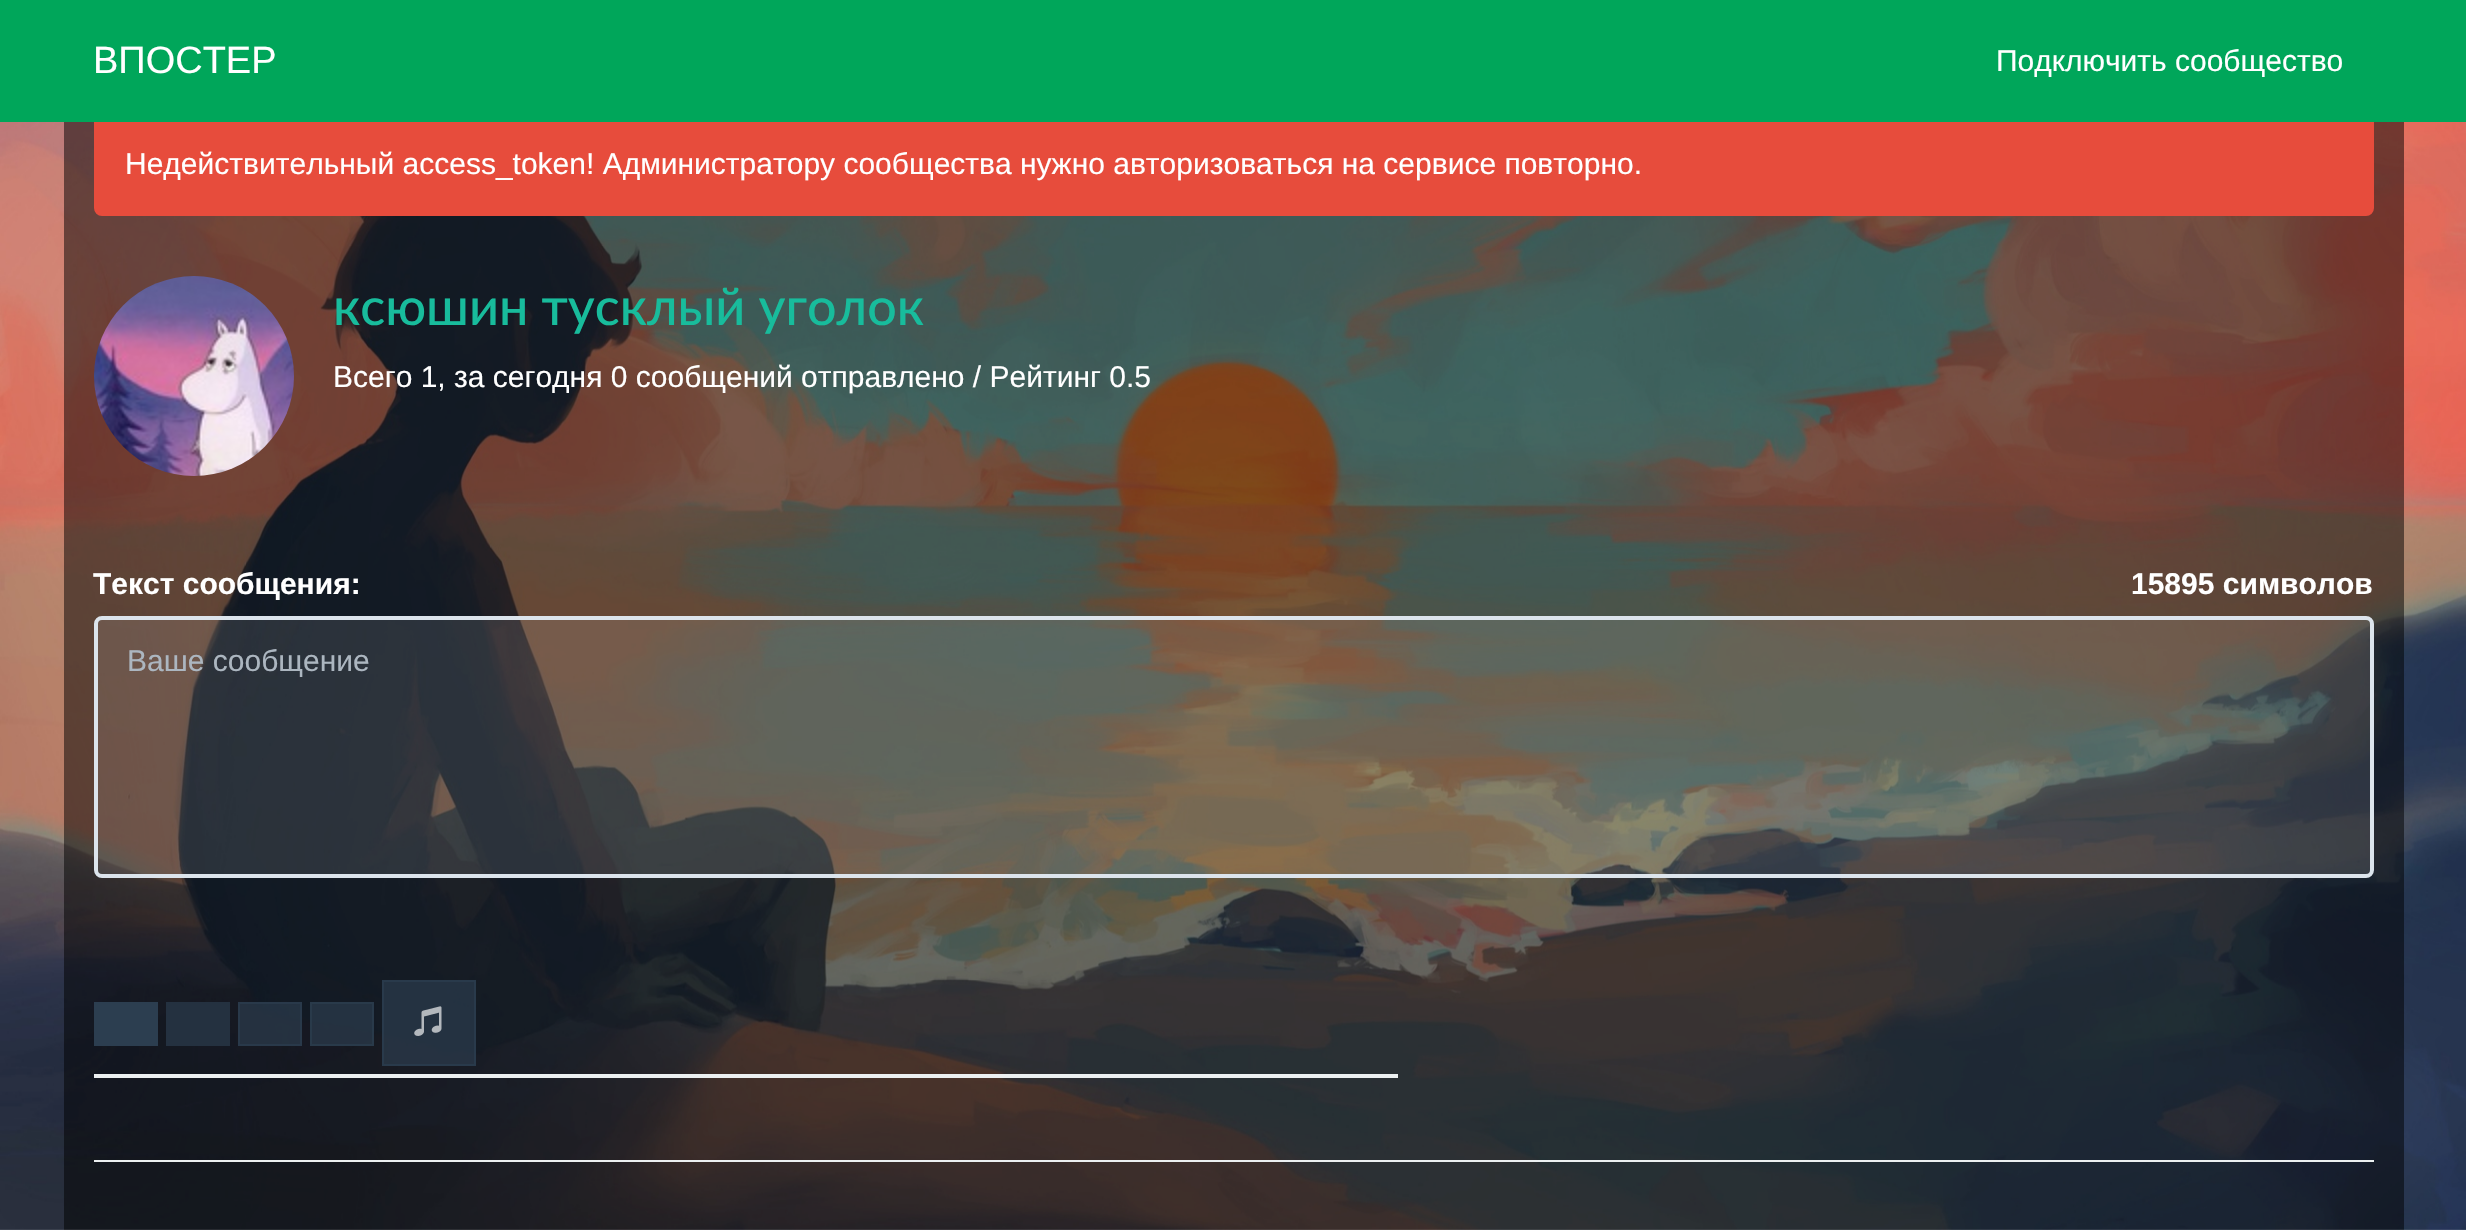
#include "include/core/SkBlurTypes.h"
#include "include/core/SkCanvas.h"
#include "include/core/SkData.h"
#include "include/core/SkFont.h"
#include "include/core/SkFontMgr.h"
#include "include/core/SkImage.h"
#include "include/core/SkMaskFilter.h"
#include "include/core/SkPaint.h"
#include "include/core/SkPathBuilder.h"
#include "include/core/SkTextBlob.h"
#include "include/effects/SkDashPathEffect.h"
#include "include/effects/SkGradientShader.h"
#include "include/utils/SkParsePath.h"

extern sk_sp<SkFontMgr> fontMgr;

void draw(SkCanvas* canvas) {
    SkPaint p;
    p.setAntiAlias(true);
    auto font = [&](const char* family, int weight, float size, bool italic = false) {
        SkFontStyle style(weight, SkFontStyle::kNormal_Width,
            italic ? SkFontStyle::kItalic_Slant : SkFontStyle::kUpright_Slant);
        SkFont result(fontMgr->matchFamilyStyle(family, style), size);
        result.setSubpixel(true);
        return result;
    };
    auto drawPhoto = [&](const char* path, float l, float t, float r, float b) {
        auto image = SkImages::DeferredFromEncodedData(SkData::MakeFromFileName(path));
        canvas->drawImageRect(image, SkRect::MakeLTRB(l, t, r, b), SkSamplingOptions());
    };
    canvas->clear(0xFFFFFFFF);
    drawPhoto("media/1.png", 0, 122, 2466, 1230);
    p.setColor(0xFFE74C3C);
    canvas->drawRoundRect(SkRect::MakeLTRB(95, 67, 2373, 215), 7, 7, p);
    p.setStyle(SkPaint::kStroke_Style);
    p.setStrokeWidth(2);
    canvas->drawRoundRect(SkRect::MakeLTRB(95, 67, 2373, 215), 7, 7, p);
    p.setStyle(SkPaint::kFill_Style);
    p.setColor(0xFF00A65A);
    canvas->drawRect(SkRect::MakeLTRB(0, 0, 2466, 122), p);
    auto font1 = font("Liberation Sans", 400, 38);
    p.setColor(0xFFFFFFFF);
    canvas->drawString("ВПОСТЕР", 93, 73, font1, p);
    auto font2 = font("Liberation Sans", 400, 30);
    canvas->drawString("Подключить сообщество", 1996, 71, font2, p);
    canvas->drawString("Недействительный access_token! Администратору сообщества нужно авторизоваться на сервисе повторно.", 125, 174, font2, p);
    drawPhoto("media/2.png", 94, 276, 294, 476);
    auto font3 = font("Lato", 500, 52);
    p.setColor(0xFF18BC9C);
    canvas->drawString("ксюшин тусклый уголок", 333, 325, font3, p);
    p.setColor(0xFFFFFFFF);
    canvas->drawString("Всего 1, за сегодня 0 сообщений отправлено / Рейтинг 0.5", 333, 387, font2, p);
    auto font4 = font("Liberation Sans", 700, 30);
    canvas->drawString("Текст сообщения:", 93, 594, font4, p);
    canvas->drawString("15895 символов", 2131, 594, font4, p);
    p.setColor(0x1AFFFFFF);
    canvas->drawRoundRect(SkRect::MakeLTRB(96, 618, 2372, 876), 6, 6, p);
    p.setStyle(SkPaint::kStroke_Style);
    p.setStrokeWidth(4);
    p.setColor(0xFFDCE4EC);
    canvas->drawRoundRect(SkRect::MakeLTRB(96, 618, 2372, 876), 6, 6, p);
    p.setStyle(SkPaint::kFill_Style);
    p.setColor(0xFFACB6C0);
    canvas->drawString("Ваше сообщение", 127, 671, font2, p);
    p.setColor(0xFF2C3E50);
    canvas->drawRect(SkRect::MakeLTRB(94, 1002, 158, 1046), p);
    p.setColor(0xFF243140);
    canvas->drawRect(SkRect::MakeLTRB(166, 1002, 230, 1046), p);
    p.setColor(0xA62C3E50);
    canvas->drawRect(SkRect::MakeLTRB(239, 1003, 301, 1045), p);
    p.setStyle(SkPaint::kStroke_Style);
    p.setStrokeWidth(2);
    p.setColor(0xFF29394A);
    canvas->drawRect(SkRect::MakeLTRB(239, 1003, 301, 1045), p);
    p.setStyle(SkPaint::kFill_Style);
    p.setColor(0xA62C3E50);
    canvas->drawRect(SkRect::MakeLTRB(311, 1003, 373, 1045), p);
    p.setStyle(SkPaint::kStroke_Style);
    p.setColor(0xFF293A4A);
    canvas->drawRect(SkRect::MakeLTRB(311, 1003, 373, 1045), p);
    p.setStyle(SkPaint::kFill_Style);
    p.setColor(0xA62C3E50);
    canvas->drawRect(SkRect::MakeLTRB(383, 981, 475, 1065), p);
    p.setStyle(SkPaint::kStroke_Style);
    p.setColor(0xFF293A4B);
    canvas->drawRect(SkRect::MakeLTRB(383, 981, 475, 1065), p);
    drawPhoto("media/3.png", 414, 1006, 442, 1036);
    p.setStyle(SkPaint::kFill_Style);
    p.setColor(0xFFECF0F1);
    canvas->drawRect(SkRect::MakeLTRB(94, 1074, 1398, 1078), p);
    canvas->drawRect(SkRect::MakeLTRB(94, 1160, 2374, 1162), p);
}
